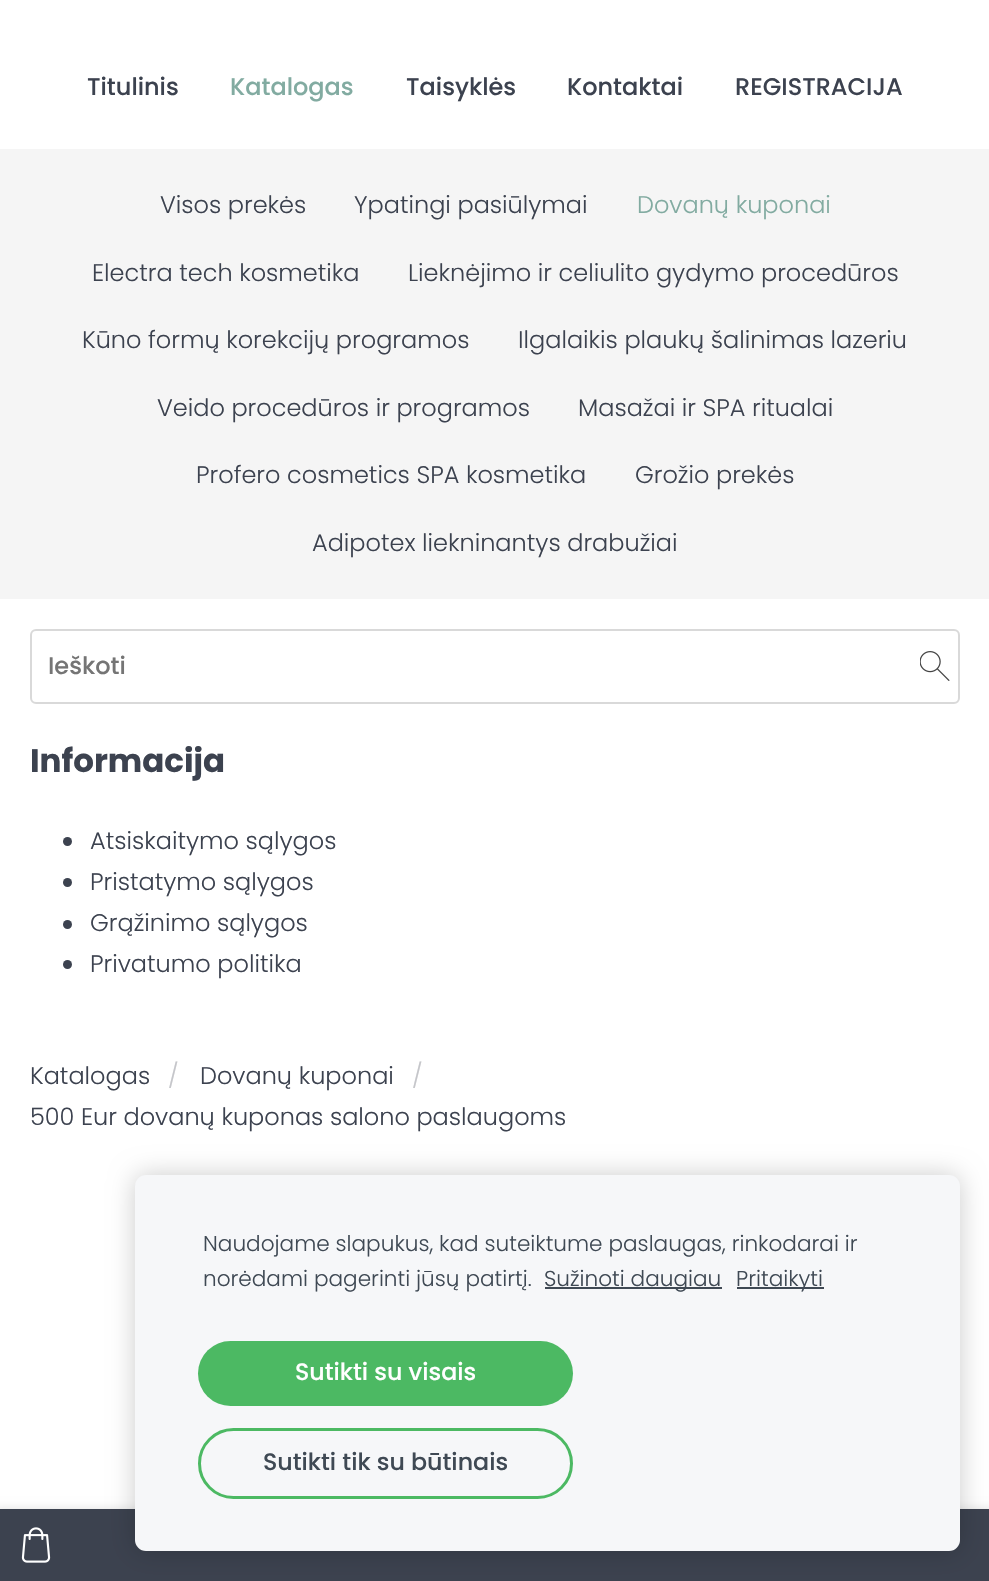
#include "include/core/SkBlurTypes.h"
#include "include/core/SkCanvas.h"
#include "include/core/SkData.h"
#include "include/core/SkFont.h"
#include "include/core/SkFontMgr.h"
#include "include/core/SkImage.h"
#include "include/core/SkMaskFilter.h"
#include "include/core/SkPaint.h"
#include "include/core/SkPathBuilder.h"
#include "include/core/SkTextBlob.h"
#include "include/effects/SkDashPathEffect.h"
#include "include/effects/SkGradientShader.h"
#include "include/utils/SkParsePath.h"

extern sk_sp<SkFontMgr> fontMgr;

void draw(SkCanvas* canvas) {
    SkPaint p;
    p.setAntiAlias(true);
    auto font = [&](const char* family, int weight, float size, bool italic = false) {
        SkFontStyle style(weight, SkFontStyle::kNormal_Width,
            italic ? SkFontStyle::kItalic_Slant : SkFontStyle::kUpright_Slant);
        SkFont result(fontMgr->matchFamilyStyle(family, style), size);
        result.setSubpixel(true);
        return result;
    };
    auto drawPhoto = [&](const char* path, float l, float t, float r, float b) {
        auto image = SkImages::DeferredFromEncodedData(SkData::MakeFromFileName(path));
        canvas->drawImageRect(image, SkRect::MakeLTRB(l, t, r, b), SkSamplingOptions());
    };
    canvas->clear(0xFFFFFFFF);
    auto font1 = font("Poppins", 500, 24);
    p.setColor(0xFF3C424F);
    canvas->drawString("Titulinis", 87, 95, font1, p);
    p.setColor(0xFF82ABA1);
    canvas->drawString("Katalogas", 230, 95, font1, p);
    p.setColor(0xFF3C424F);
    {
        const struct { const char* s; float x, y; } items[] = {
            {"Taisyklės", 406, 95},
            {"Kontaktai", 567, 95},
            {"REGISTRACIJA", 735, 95},
        };
        for (auto [s, x, y] : items) {
            canvas->drawString(s, x, y, font1, p);
        }
    }
    p.setColor(0xFFF5F5F5);
    canvas->drawRect(SkRect::MakeLTRB(0, 149, 989, 599), p);
    auto font2 = font("Poppins", 300, 24);
    p.setColor(0xFF3C424F);
    canvas->drawString("Visos prekės", 160, 213, font2, p);
    canvas->drawString("Ypatingi pasiūlymai", 354, 213, font2, p);
    p.setColor(0xFF82ABA1);
    canvas->drawString("Dovanų kuponai", 637, 213, font2, p);
    p.setColor(0xFF3C424F);
    {
        const struct { const char* s; float x, y; } items[] = {
            {"Electra tech kosmetika", 92, 281},
            {"Lieknėjimo ir celiulito gydymo procedūros", 408, 281},
            {"Kūno formų korekcijų programos", 82, 348},
            {"Ilgalaikis plaukų šalinimas lazeriu", 518, 348},
            {"Veido procedūros ir programos", 157, 416},
            {"Masažai ir SPA ritualai", 578, 416},
            {"Profero cosmetics SPA kosmetika", 196, 483},
            {"Grožio prekės", 635, 483},
            {"Adipotex liekninantys drabužiai", 312, 551},
        };
        for (auto [s, x, y] : items) {
            canvas->drawString(s, x, y, font2, p);
        }
    }
    p.setStyle(SkPaint::kStroke_Style);
    p.setStrokeWidth(2);
    p.setColor(0xFFD9D9D9);
    canvas->drawRoundRect(SkRect::MakeLTRB(31, 630, 959, 703), 5, 5, p);
    p.setStyle(SkPaint::kFill_Style);
    p.setColor(0xFF757575);
    canvas->drawString("Ieškoti", 48, 674, font1, p);
    drawPhoto("media/1.png", 920, 651, 950, 681);
    auto font3 = font("Poppins", 700, 32.5f);
    p.setColor(0xFF3C424F);
    canvas->drawString("Informacija", 30, 772, font3, p);
    canvas->drawCircle(67.5f, 841.5f, 4.5f, p);
    canvas->drawString("Atsiskaitymo sąlygos", 90, 849, font2, p);
    canvas->drawCircle(67.5f, 882.5f, 4.5f, p);
    canvas->drawString("Pristatymo sąlygos", 90, 890, font2, p);
    canvas->drawCircle(67.5f, 924.5f, 4.5f, p);
    canvas->drawString("Grąžinimo sąlygos", 90, 931, font2, p);
    canvas->drawCircle(67.5f, 964.5f, 4.5f, p);
    canvas->drawString("Privatumo politika", 90, 972, font2, p);
    canvas->drawString("Katalogas", 30, 1084, font2, p);
    p.setColor(0xFFC5C6CA);
    canvas->drawString("/", 168, 1084, font2, p);
    p.setColor(0xFF3C424F);
    canvas->drawString("Dovanų kuponai", 200, 1084, font2, p);
    p.setColor(0xFFC5C6CA);
    canvas->drawString("/", 412, 1084, font2, p);
    p.setColor(0xFF3C424F);
    canvas->drawString("500 Eur dovanų kuponas salono paslaugoms", 30, 1125, font2, p);
    drawPhoto("media/2.png", 135, 1184, 136, 1186);
    p.setColor(0x1A000000);
    p.setMaskFilter(SkMaskFilter::MakeBlur(kNormal_SkBlurStyle, 4));
    canvas->drawRect(SkRect::MakeLTRB(-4, 1508, 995, 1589), p);
    p.setMaskFilter(nullptr);
    p.setColor(0xFF3C424F);
    canvas->drawRect(SkRect::MakeLTRB(0, 1509, 989, 1581), p);
    drawPhoto("media/3.png", 21, 1527, 51, 1563);
    p.setColor(0x33000000);
    p.setMaskFilter(SkMaskFilter::MakeBlur(kNormal_SkBlurStyle, 13));
    canvas->drawRoundRect(SkRect::MakeLTRB(135, 1175, 960, 1551), 11, 11, p);
    p.setMaskFilter(nullptr);
    p.setColor(0xFFF6F7F9);
    canvas->drawRoundRect(SkRect::MakeLTRB(135, 1175, 960, 1551), 11, 11, p);
    auto font4 = font("Poppins", 300, 21.6f);
    p.setColor(0xFF3F4954);
    canvas->drawString("Naudojame slapukus, kad suteiktume paslaugas, rinkodarai ir", 203, 1251, font4, p);
    canvas->drawString("norėdami pagerinti jūsų patirtį.", 203, 1286, font4, p);
    canvas->drawRect(SkRect::MakeLTRB(545, 1287, 722, 1289), p);
    canvas->drawString("Sužinoti daugiau", 544, 1286, font4, p);
    canvas->drawRect(SkRect::MakeLTRB(737, 1287, 824, 1289), p);
    canvas->drawString("Pritaikyti", 736, 1286, font4, p);
    p.setColor(0xFF4CB963);
    canvas->drawRoundRect(SkRect::MakeLTRB(198, 1341, 573, 1406), 32.5f, 32.5f, p);
    auto font5 = font("Poppins", 500, 23.75f);
    p.setColor(0xFFFFFFFF);
    canvas->drawString("Sutikti su visais", 295, 1380, font5, p);
    p.setStyle(SkPaint::kStroke_Style);
    p.setStrokeWidth(3);
    p.setColor(0xFF4CB963);
    canvas->drawRoundRect(SkRect::MakeLTRB(199.5f, 1429.5f, 571.5f, 1497.5f), 34, 34, p);
    p.setStyle(SkPaint::kFill_Style);
    p.setColor(0xFF3F4954);
    canvas->drawString("Sutikti tik su būtinais", 263, 1470, font5, p);
}
